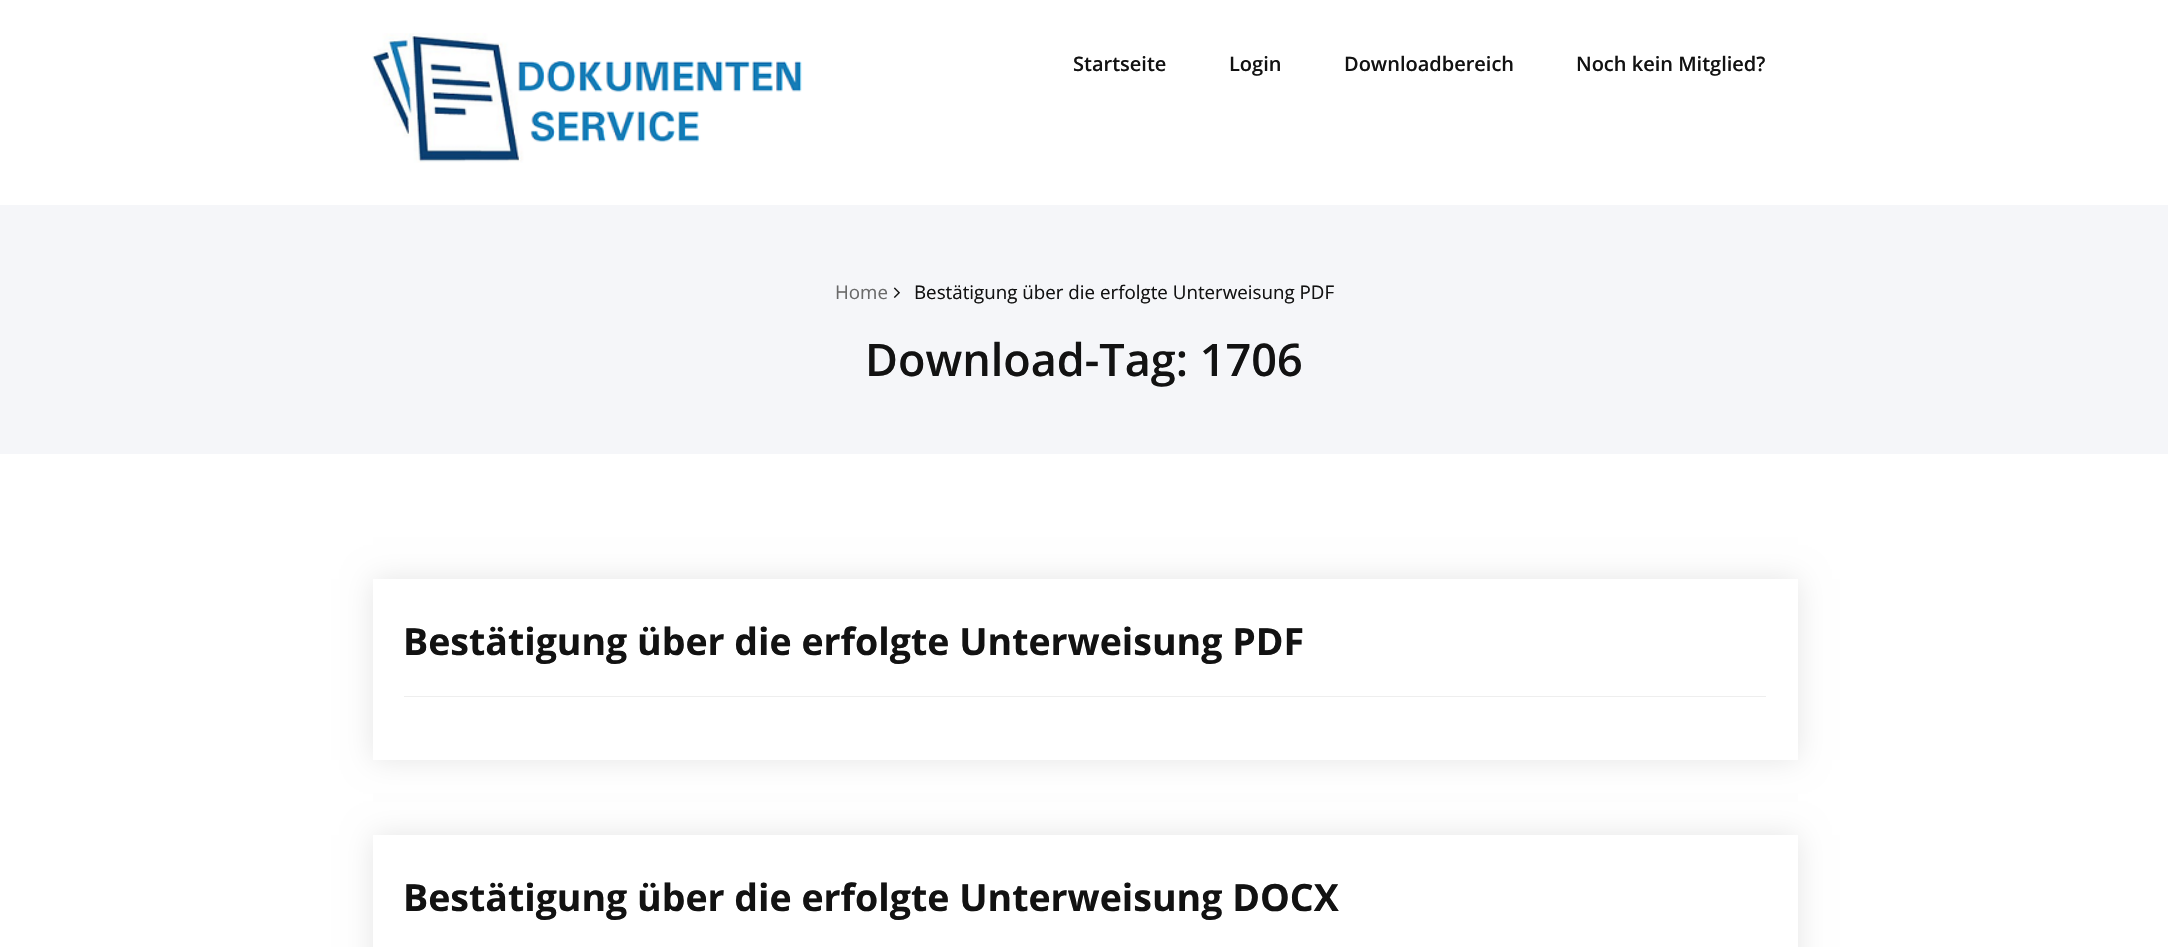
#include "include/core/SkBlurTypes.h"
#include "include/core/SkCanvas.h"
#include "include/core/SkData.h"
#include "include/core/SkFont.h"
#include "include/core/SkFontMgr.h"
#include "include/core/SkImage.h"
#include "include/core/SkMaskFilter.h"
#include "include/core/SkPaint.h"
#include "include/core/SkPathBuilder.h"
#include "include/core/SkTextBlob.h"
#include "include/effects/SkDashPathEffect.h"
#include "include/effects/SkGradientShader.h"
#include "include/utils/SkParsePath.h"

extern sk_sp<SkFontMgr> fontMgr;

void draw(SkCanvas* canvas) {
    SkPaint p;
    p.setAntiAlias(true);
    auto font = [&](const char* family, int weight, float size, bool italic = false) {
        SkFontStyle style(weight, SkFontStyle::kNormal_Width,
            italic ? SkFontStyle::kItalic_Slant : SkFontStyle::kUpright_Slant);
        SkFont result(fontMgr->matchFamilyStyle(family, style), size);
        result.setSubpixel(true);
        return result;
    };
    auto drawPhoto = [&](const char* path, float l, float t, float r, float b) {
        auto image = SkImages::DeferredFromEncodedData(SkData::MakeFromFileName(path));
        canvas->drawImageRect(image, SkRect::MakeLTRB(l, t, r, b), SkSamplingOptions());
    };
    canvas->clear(0xFFFFFFFF);
    drawPhoto("media/1.png", 372, 33, 802, 163);
    auto font1 = font("Open Sans", 600, 20);
    p.setColor(0xFF121212);
    {
        const struct { const char* s; float x, y; } items[] = {
            {"Startseite", 1073, 71},
            {"Login", 1229, 71},
            {"Downloadbereich", 1344, 71},
            {"Noch kein Mitglied?", 1576, 71},
        };
        for (auto [s, x, y] : items) {
            canvas->drawString(s, x, y, font1, p);
        }
    }
    p.setColor(0xFFF5F6F9);
    canvas->drawRect(SkRect::MakeLTRB(0, 205, 2168, 454), p);
    auto font2 = font("Open Sans", 400, 18.75f);
    p.setColor(0xFF6A6A6A);
    canvas->drawString("Home", 835, 299, font2, p);
    drawPhoto("media/2.png", 893, 287, 900, 298);
    p.setColor(0xFF121212);
    canvas->drawString("Bestätigung über die erfolgte Unterweisung PDF", 914, 299, font2, p);
    auto font3 = font("Open Sans", 600, 45);
    canvas->drawString("Download-Tag: 1706", 865, 376, font3, p);
    canvas->save();
    canvas->clipPath(SkPathBuilder(SkPathFillType::kEvenOdd).moveTo(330, 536).lineTo(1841, 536).lineTo(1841, 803).lineTo(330, 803).close().moveTo(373, 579).lineTo(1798, 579).lineTo(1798, 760).lineTo(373, 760).close().detach(), true);
    p.setColor(0x1A000000);
    p.setMaskFilter(SkMaskFilter::MakeBlur(kNormal_SkBlurStyle, 14));
    canvas->drawRect(SkRect::MakeLTRB(373, 579, 1798, 760), p);
    p.setMaskFilter(nullptr);
    canvas->restore();
    auto font4 = font("Open Sans", 700, 37.5f);
    p.setColor(0xFF121212);
    canvas->drawString("Bestätigung über die erfolgte Unterweisung PDF", 403, 655, font4, p);
    p.setColor(0xFFEEEEEE);
    canvas->drawRect(SkRect::MakeLTRB(404, 696, 1766, 697), p);
    canvas->save();
    canvas->clipPath(SkPathBuilder(SkPathFillType::kEvenOdd).moveTo(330, 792).lineTo(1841, 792).lineTo(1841, 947).lineTo(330, 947).close().moveTo(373, 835).lineTo(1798, 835).lineTo(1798, 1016).lineTo(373, 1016).close().detach(), true);
    p.setColor(0x1A000000);
    p.setMaskFilter(SkMaskFilter::MakeBlur(kNormal_SkBlurStyle, 14));
    canvas->drawRect(SkRect::MakeLTRB(373, 835, 1798, 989), p);
    p.setMaskFilter(nullptr);
    canvas->restore();
    p.setColor(0xFF121212);
    canvas->drawString("Bestätigung über die erfolgte Unterweisung DOCX", 403, 911, font4, p);
}
